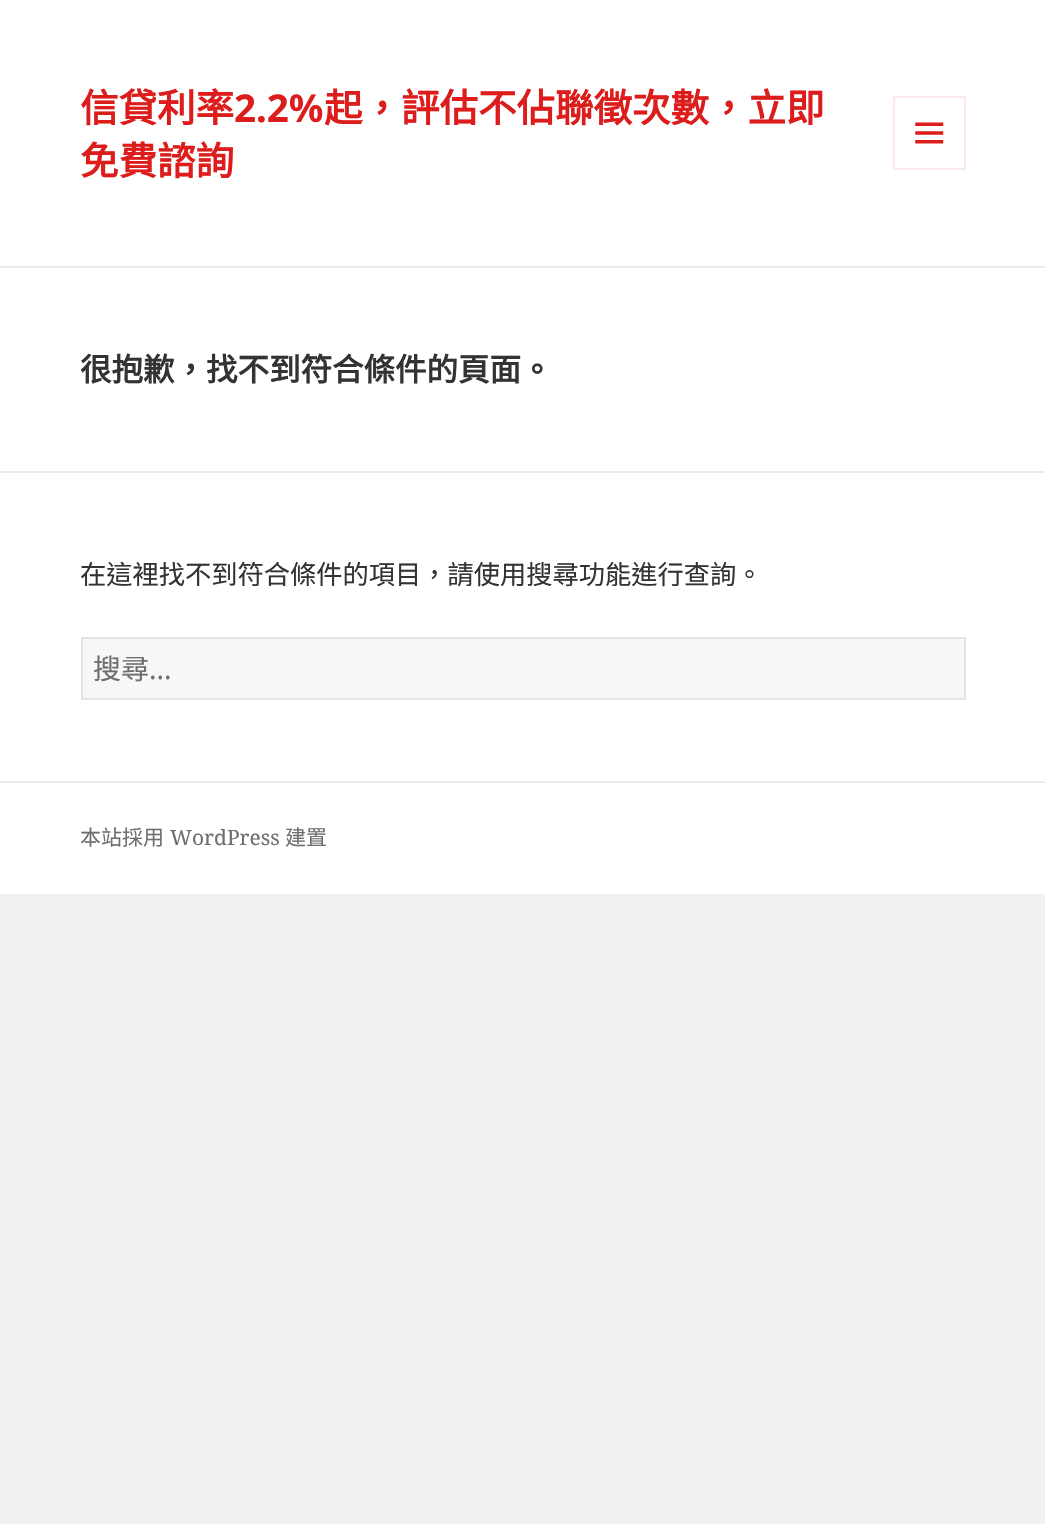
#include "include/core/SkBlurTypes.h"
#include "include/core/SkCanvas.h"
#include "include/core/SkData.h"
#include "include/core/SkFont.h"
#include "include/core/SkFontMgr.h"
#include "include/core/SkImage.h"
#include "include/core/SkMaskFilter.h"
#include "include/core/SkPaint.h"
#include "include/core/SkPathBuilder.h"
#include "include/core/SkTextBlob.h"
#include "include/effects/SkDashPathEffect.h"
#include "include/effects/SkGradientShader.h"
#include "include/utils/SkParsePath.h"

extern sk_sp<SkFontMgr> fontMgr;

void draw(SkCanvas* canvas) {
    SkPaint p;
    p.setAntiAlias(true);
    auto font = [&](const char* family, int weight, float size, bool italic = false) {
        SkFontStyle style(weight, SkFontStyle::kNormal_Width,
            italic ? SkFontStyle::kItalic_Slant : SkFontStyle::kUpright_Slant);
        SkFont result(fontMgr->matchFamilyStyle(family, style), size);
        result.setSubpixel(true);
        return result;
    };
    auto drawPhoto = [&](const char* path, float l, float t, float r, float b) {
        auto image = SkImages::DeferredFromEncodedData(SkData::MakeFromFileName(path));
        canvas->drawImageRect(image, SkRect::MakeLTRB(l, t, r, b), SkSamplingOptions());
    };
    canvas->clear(0xFFF1F1F1);
    p.setColor(0xFFFFFFFF);
    canvas->drawRect(SkRect::MakeLTRB(0, 0, 1045, 266), p);
    p.setColor(0xFFEBEBEB);
    canvas->drawRect(SkRect::MakeLTRB(0, 266, 1045, 268), p);
    auto font1 = font("Noto Sans CJK TC", 700, 38.5f);
    p.setColor(0xFFDD1C1C);
    canvas->drawString("信貸利率", 80, 122, font1, p);
    auto font2 = font("Noto Sans", 700, 38.5f);
    canvas->drawString("2.2%", 234, 122, font2, p);
    canvas->drawString("起，評估不佔聯徵次數，立即", 324, 122, font1, p);
    canvas->drawString("免費諮詢", 80, 175, font1, p);
    p.setStyle(SkPaint::kStroke_Style);
    p.setStrokeWidth(2);
    p.setColor(0xFFFCE8E8);
    canvas->drawRect(SkRect::MakeLTRB(894, 97, 965, 169), p);
    drawPhoto("media/1.png", 915, 122, 944, 144);
    p.setStyle(SkPaint::kFill_Style);
    p.setColor(0xFFFFFFFF);
    canvas->drawRect(SkRect::MakeLTRB(0, 268, 1045, 471), p);
    p.setColor(0xFFEBEBEB);
    canvas->drawRect(SkRect::MakeLTRB(0, 471, 1045, 473), p);
    auto font3 = font("Noto Sans CJK TC", 700, 31.5f);
    p.setColor(0xFF333333);
    canvas->drawString("很抱歉，找不到符合條件的頁面。", 80, 381, font3, p);
    p.setColor(0xFFFFFFFF);
    canvas->drawRect(SkRect::MakeLTRB(0, 473, 1045, 781), p);
    auto font4 = font("Noto Sans CJK TC", 400, 26.25f);
    p.setColor(0xFF333333);
    canvas->drawString("在這裡找不到符合條件的項目，請使用搜尋功能進行查詢。", 80, 584, font4, p);
    p.setColor(0xFFF7F7F7);
    canvas->drawRect(SkRect::MakeLTRB(82, 638, 965, 699), p);
    p.setStyle(SkPaint::kStroke_Style);
    p.setColor(0xFFE3E3E3);
    canvas->drawRect(SkRect::MakeLTRB(82, 638, 965, 699), p);
    auto font5 = font("Noto Sans CJK TC", 400, 28);
    p.setStyle(SkPaint::kFill_Style);
    p.setColor(0xFF6E6E6E);
    canvas->drawString("搜尋", 93, 679, font5, p);
    auto font6 = font("Noto Sans", 400, 28);
    canvas->drawString("...", 149, 679, font6, p);
    p.setColor(0xFFFFFFFF);
    canvas->drawRect(SkRect::MakeLTRB(0, 783, 1045, 894), p);
    p.setColor(0xFFEBEBEB);
    canvas->drawRect(SkRect::MakeLTRB(0, 781, 1045, 783), p);
    auto font7 = font("Noto Sans CJK TC", 400, 21);
    p.setColor(0xFF6E6E6E);
    canvas->drawString("本站採用", 80, 845, font7, p);
    auto font8 = font("Noto Serif", 400, 21);
    canvas->drawString("WordPress", 170, 845, font8, p);
    canvas->drawString("建置", 285, 845, font7, p);
}
